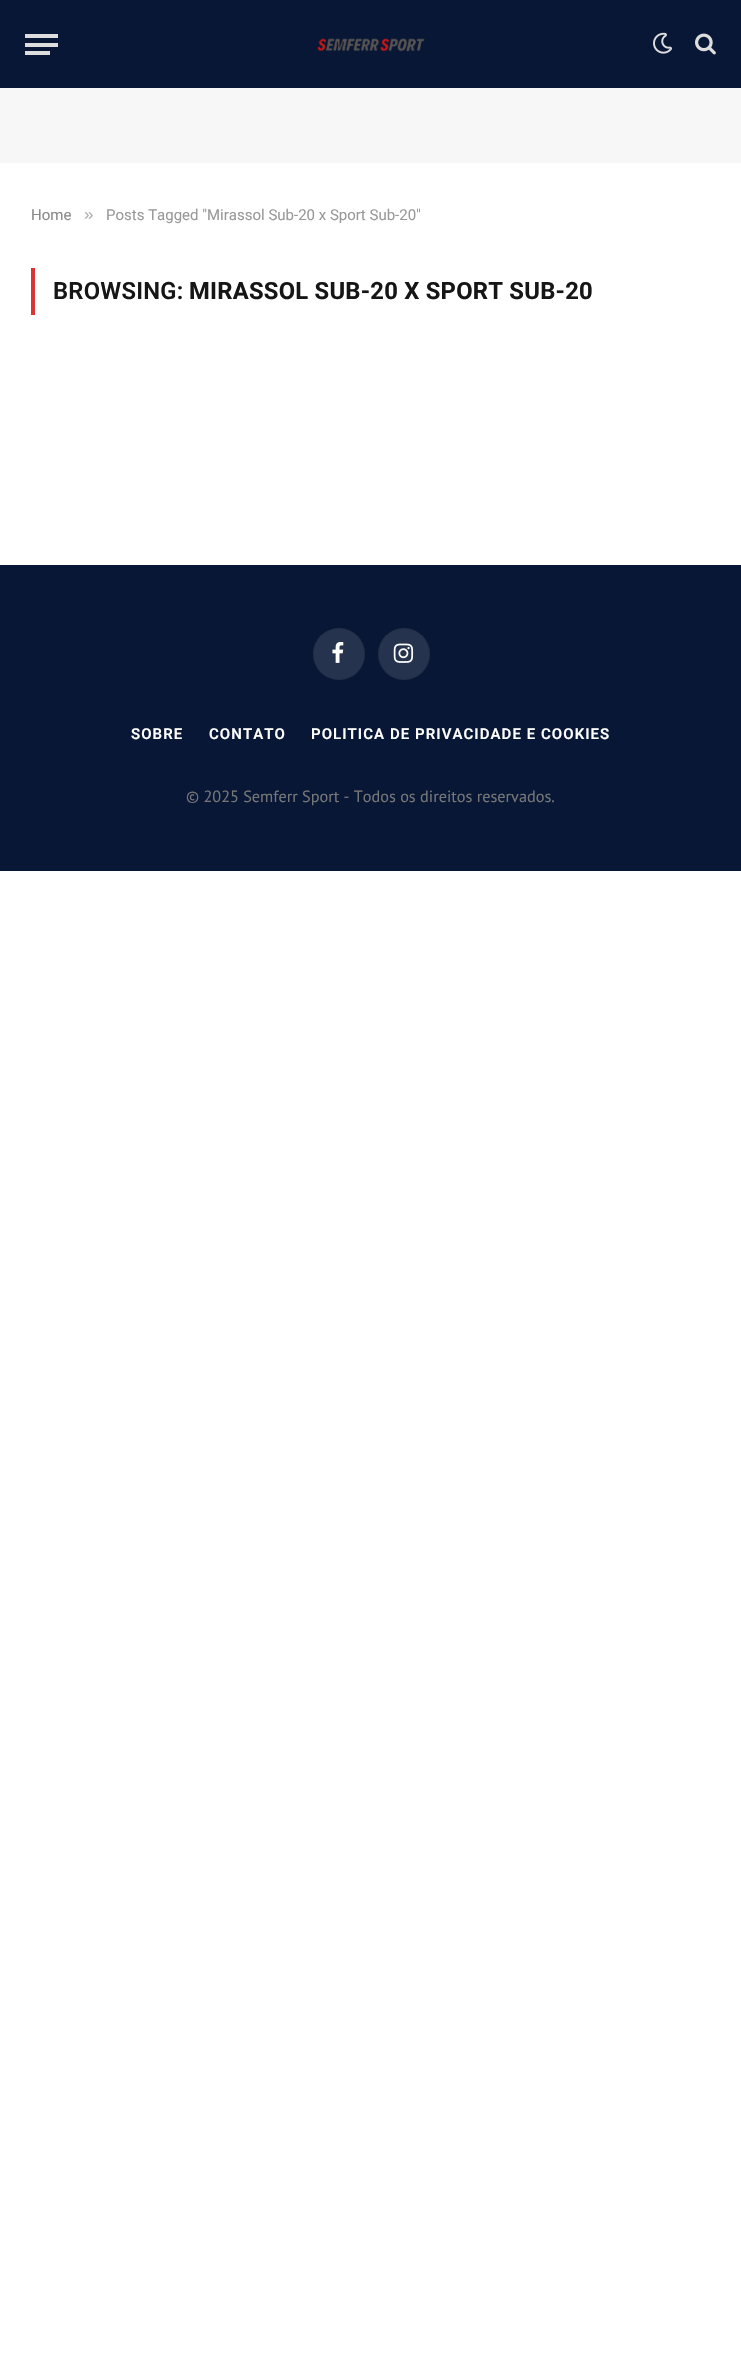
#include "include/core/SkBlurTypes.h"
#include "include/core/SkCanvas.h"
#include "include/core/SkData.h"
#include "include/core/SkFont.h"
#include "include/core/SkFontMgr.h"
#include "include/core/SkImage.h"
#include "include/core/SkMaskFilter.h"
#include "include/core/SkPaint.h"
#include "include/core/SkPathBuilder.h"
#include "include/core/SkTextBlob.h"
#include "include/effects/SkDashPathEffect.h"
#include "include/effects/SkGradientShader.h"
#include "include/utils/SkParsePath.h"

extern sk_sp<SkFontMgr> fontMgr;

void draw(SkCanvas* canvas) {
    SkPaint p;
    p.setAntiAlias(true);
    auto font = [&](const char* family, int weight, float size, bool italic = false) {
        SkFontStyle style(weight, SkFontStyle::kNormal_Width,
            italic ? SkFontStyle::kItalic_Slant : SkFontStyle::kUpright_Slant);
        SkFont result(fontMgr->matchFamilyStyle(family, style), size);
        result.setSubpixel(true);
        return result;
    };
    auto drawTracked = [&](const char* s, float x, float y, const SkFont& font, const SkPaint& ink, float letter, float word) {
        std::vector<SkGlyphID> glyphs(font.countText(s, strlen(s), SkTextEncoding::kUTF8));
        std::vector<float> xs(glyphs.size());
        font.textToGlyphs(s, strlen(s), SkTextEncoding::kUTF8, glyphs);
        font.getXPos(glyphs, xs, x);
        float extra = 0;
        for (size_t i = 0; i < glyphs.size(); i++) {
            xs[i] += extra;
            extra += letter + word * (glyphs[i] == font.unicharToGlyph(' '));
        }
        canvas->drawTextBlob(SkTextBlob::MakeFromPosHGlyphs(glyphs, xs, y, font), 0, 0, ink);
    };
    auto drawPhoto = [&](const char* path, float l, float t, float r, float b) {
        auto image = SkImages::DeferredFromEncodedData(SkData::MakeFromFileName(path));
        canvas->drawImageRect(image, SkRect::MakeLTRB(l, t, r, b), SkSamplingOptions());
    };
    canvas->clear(0xFFFFFFFF);
    {
        const struct { float l, t, r, b; SkColor color; } items[] = {
            {0, 0, 741, 88, 0xFF081736},
            {25, 51, 50, 55, 0xFFDDDDDD},
            {25, 34, 58, 38, 0xFFDDDDDD},
            {25, 43, 58, 47, 0xFFDDDDDD},
        };
        for (auto [l, t, r, b, color] : items) {
            p.setColor(color);
            canvas->drawRect(SkRect::MakeLTRB(l, t, r, b), p);
        }
    }
    drawPhoto("media/1.png", 317, 38, 425, 52);
    drawPhoto("media/2.png", 653, 32, 672, 54);
    drawPhoto("media/3.png", 695, 33, 716, 55);
    p.setColor(0xFFF7F7F7);
    canvas->drawRect(SkRect::MakeLTRB(0, 88, 741, 163), p);
    auto font1 = font("Roboto", 400, 15);
    p.setColor(0xFF8A8A8A);
    canvas->drawString("Home", 31, 220, font1, p);
    auto font2 = font("Liberation Sans", 400, 17);
    p.setColor(0xFFADADAD);
    canvas->drawString("»", 84, 220, font2, p);
    p.setColor(0xFF999999);
    canvas->drawString("Posts Tagged \"Mirassol Sub-20 x Sport Sub-20\"", 106, 220, font1, p);
    p.setColor(0xFFDD3333);
    canvas->drawRect(SkRect::MakeLTRB(31, 268, 35, 315), p);
    auto font3 = font("Roboto", 600, 23.75f);
    p.setColor(0xFF161616);
    drawTracked("BROWSING:", 53, 299, font3, p, 0.25f, 0);
    auto font4 = font("Roboto", 700, 23.75f);
    drawTracked("MIRASSOL SUB-20 X SPORT SUB-20", 189, 299, font4, p, 0.25f, 0);
    p.setColor(0xFF081736);
    canvas->drawRect(SkRect::MakeLTRB(0, 565, 741, 871), p);
    p.setColor(0xFF26334E);
    canvas->drawCircle(339, 654, 26, p);
    p.setStyle(SkPaint::kStroke_Style);
    p.setStrokeWidth(1);
    p.setColor(0x17000000);
    canvas->drawCircle(339, 654, 25.5f, p);
    drawPhoto("media/4.png", 332, 642, 344, 663);
    p.setStyle(SkPaint::kFill_Style);
    p.setColor(0xFF26334E);
    canvas->drawCircle(404, 654, 26, p);
    p.setStyle(SkPaint::kStroke_Style);
    p.setColor(0x17000000);
    canvas->drawCircle(404, 654, 25.5f, p);
    drawPhoto("media/5.png", 393, 643, 414, 663);
    auto font5 = font("Roboto", 600, 15);
    p.setStyle(SkPaint::kFill_Style);
    p.setColor(0xFFFFFFFF);
    {
        const struct { const char* s; float x, y; } items[] = {
            {"SOBRE", 131, 739},
            {"CONTATO", 209, 739},
            {"POLITICA DE PRIVACIDADE E COOKIES", 311, 739},
        };
        for (auto [s, x, y] : items) {
            drawTracked(s, x, y, font5, p, 1.05f, 0);
        }
    }
    auto font6 = font("PT Sans", 400, 16.25f);
    p.setColor(0xFF777777);
    canvas->drawString("© 2025 Semferr Sport - Todos os direitos reservados.", 186, 802, font6, p);
}
